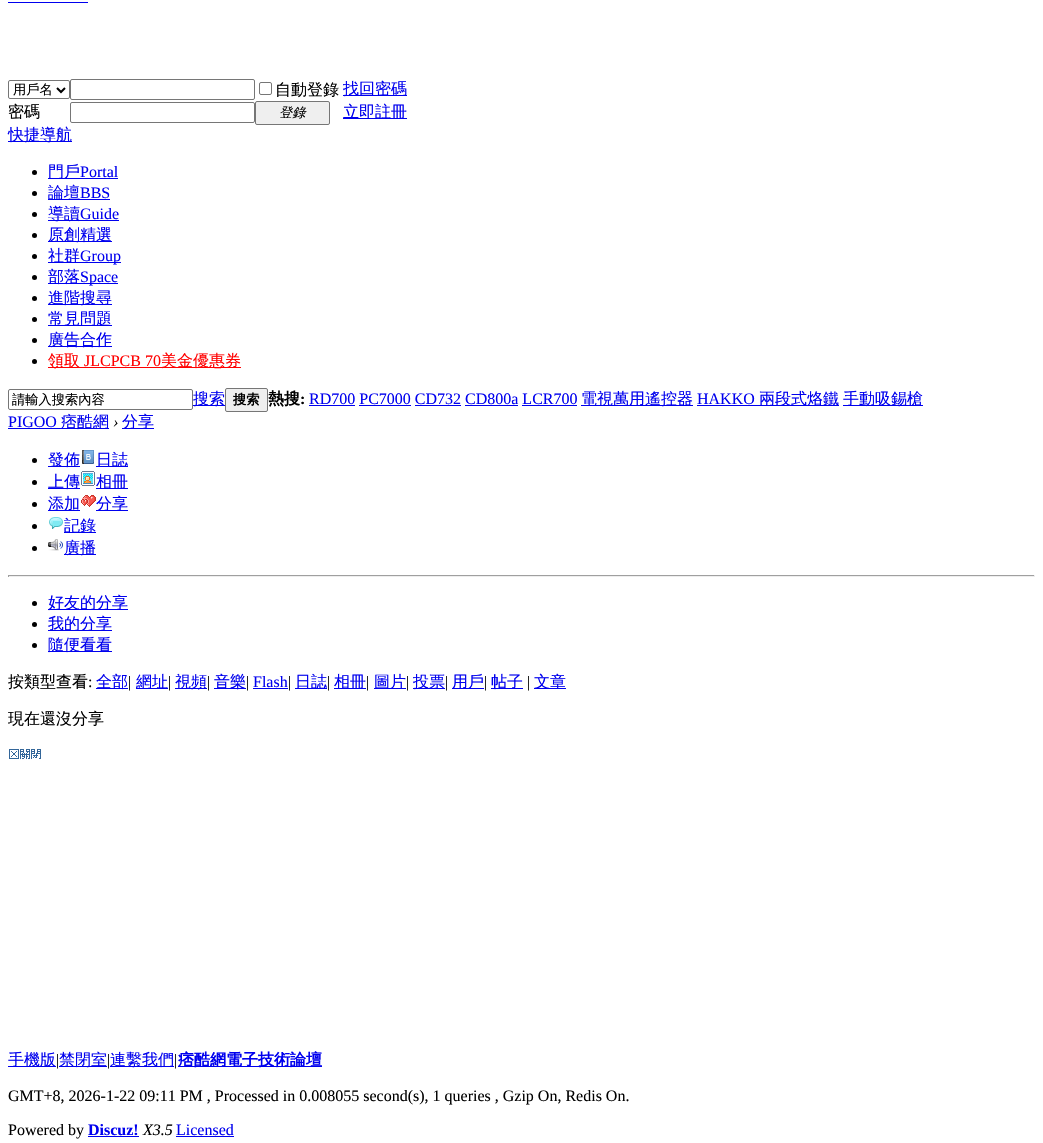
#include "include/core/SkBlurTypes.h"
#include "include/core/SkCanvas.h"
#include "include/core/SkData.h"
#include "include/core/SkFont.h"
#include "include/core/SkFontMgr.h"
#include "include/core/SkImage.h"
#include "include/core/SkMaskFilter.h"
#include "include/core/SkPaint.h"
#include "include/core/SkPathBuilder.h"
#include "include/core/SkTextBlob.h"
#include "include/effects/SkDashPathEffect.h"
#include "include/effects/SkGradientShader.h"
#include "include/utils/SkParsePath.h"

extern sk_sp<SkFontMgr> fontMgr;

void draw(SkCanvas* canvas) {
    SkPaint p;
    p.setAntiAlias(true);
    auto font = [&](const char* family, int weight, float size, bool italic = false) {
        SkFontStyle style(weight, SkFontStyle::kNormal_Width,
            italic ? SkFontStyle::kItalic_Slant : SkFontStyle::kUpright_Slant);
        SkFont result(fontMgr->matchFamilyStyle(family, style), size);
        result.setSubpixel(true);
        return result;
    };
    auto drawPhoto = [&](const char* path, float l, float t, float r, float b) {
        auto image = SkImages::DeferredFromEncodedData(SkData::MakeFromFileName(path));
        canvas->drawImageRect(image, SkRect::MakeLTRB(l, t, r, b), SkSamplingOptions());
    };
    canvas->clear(0xFFFFFFFF);
    p.setColor(0xFF0000EE);
    canvas->drawRect(SkRect::MakeLTRB(8, 2, 88, 3), p);
    p.setStyle(SkPaint::kStroke_Style);
    p.setStrokeWidth(1);
    p.setColor(0xFF767676);
    canvas->drawRoundRect(SkRect::MakeLTRB(8.5f, 80.5f, 69.5f, 98.5f), 1.5f, 1.5f, p);
    p.setStrokeWidth(2);
    p.setColor(0xFF000000);
    canvas->drawPath(SkPathBuilder().moveTo(57, 88).lineTo(61, 92).lineTo(65, 88).detach(), p);
    auto font1 = font("WenQuanYi Zen Hei", 500, 13.25f);
    p.setStyle(SkPaint::kFill_Style);
    canvas->drawString("用戶名", 13, 94, font1, p);
    p.setStyle(SkPaint::kStroke_Style);
    p.setStrokeWidth(1);
    p.setColor(0xFF767676);
    canvas->drawRoundRect(SkRect::MakeLTRB(70.5f, 79.5f, 254.5f, 99.5f), 1.5f, 1.5f, p);
    canvas->drawRoundRect(SkRect::MakeLTRB(259.5f, 82.5f, 271.5f, 94.5f), 1.5f, 1.5f, p);
    auto font2 = font("WenQuanYi Zen Hei", 500, 16);
    p.setStyle(SkPaint::kFill_Style);
    p.setColor(0xFF000000);
    canvas->drawString("自動登錄", 275, 95, font2, p);
    p.setColor(0xFF0000EE);
    canvas->drawRect(SkRect::MakeLTRB(343, 95, 407, 96), p);
    canvas->drawString("找回密碼", 343, 94, font2, p);
    p.setColor(0xFF000000);
    canvas->drawString("密碼", 8, 117, font2, p);
    p.setStyle(SkPaint::kStroke_Style);
    p.setColor(0xFF767676);
    canvas->drawRoundRect(SkRect::MakeLTRB(70.5f, 102.5f, 254.5f, 122.5f), 1.5f, 1.5f, p);
    p.setStyle(SkPaint::kFill_Style);
    p.setColor(0xFFEFEFEF);
    canvas->drawRoundRect(SkRect::MakeLTRB(255.5f, 101.5f, 329.5f, 124.5f), 1.5f, 1.5f, p);
    p.setStyle(SkPaint::kStroke_Style);
    p.setColor(0xFF767676);
    canvas->drawRoundRect(SkRect::MakeLTRB(255.5f, 101.5f, 329.5f, 124.5f), 1.5f, 1.5f, p);
    auto font3 = font("WenQuanYi Zen Hei", 500, 13.25f, true);
    p.setStyle(SkPaint::kFill_Style);
    p.setColor(0xFF000000);
    canvas->drawString("登錄", 279, 117, font3, p);
    p.setColor(0xFF0000EE);
    canvas->drawRect(SkRect::MakeLTRB(343, 118, 407, 119), p);
    canvas->drawString("立即註冊", 343, 117, font2, p);
    canvas->drawRect(SkRect::MakeLTRB(8, 141, 72, 142), p);
    canvas->drawString("快捷導航", 8, 140, font2, p);
    p.setColor(0xFF000000);
    canvas->drawCircle(34.5f, 172.5f, 2.5f, p);
    p.setColor(0xFF0000EE);
    canvas->drawRect(SkRect::MakeLTRB(48, 178, 118, 179), p);
    canvas->drawString("門戶", 48, 177, font2, p);
    auto font4 = font("Liberation Serif", 400, 16);
    canvas->drawString("Portal", 80, 177, font4, p);
    p.setColor(0xFF000000);
    canvas->drawCircle(34.5f, 193.5f, 2.5f, p);
    p.setColor(0xFF0000EE);
    canvas->drawRect(SkRect::MakeLTRB(48, 199, 110, 200), p);
    canvas->drawString("論壇", 48, 198, font2, p);
    canvas->drawString("BBS", 80, 198, font4, p);
    p.setColor(0xFF000000);
    canvas->drawCircle(34.5f, 214.5f, 2.5f, p);
    p.setColor(0xFF0000EE);
    canvas->drawRect(SkRect::MakeLTRB(48, 220, 119, 221), p);
    canvas->drawString("導讀", 48, 219, font2, p);
    canvas->drawString("Guide", 80, 219, font4, p);
    p.setColor(0xFF000000);
    canvas->drawCircle(34.5f, 235.5f, 2.5f, p);
    p.setColor(0xFF0000EE);
    canvas->drawRect(SkRect::MakeLTRB(48, 241, 112, 242), p);
    canvas->drawString("原創精選", 48, 240, font2, p);
    p.setColor(0xFF000000);
    canvas->drawCircle(34.5f, 256.5f, 2.5f, p);
    p.setColor(0xFF0000EE);
    canvas->drawRect(SkRect::MakeLTRB(48, 262, 121, 263), p);
    canvas->drawString("社群", 48, 261, font2, p);
    canvas->drawString("Group", 80, 261, font4, p);
    p.setColor(0xFF000000);
    canvas->drawCircle(34.5f, 277.5f, 2.5f, p);
    p.setColor(0xFF0000EE);
    canvas->drawRect(SkRect::MakeLTRB(48, 283, 118, 284), p);
    canvas->drawString("部落", 48, 282, font2, p);
    canvas->drawString("Space", 80, 282, font4, p);
    p.setColor(0xFF000000);
    canvas->drawCircle(34.5f, 298.5f, 2.5f, p);
    p.setColor(0xFF0000EE);
    canvas->drawRect(SkRect::MakeLTRB(48, 304, 112, 305), p);
    canvas->drawString("進階搜尋", 48, 303, font2, p);
    p.setColor(0xFF000000);
    canvas->drawCircle(34.5f, 319.5f, 2.5f, p);
    p.setColor(0xFF0000EE);
    canvas->drawRect(SkRect::MakeLTRB(48, 325, 112, 326), p);
    canvas->drawString("常見問題", 48, 324, font2, p);
    p.setColor(0xFF000000);
    canvas->drawCircle(34.5f, 340.5f, 2.5f, p);
    p.setColor(0xFF0000EE);
    canvas->drawRect(SkRect::MakeLTRB(48, 346, 112, 347), p);
    canvas->drawString("廣告合作", 48, 345, font2, p);
    p.setColor(0xFF000000);
    canvas->drawCircle(34.5f, 361.5f, 2.5f, p);
    p.setColor(0xFFFF0000);
    canvas->drawRect(SkRect::MakeLTRB(48, 367, 241, 368), p);
    canvas->drawString("領取", 48, 366, font2, p);
    canvas->drawString("JLCPCB 70", 84, 366, font4, p);
    canvas->drawString("美金優惠券", 161, 366, font2, p);
    p.setStyle(SkPaint::kStroke_Style);
    p.setColor(0xFF767676);
    canvas->drawRoundRect(SkRect::MakeLTRB(8.5f, 389.5f, 192.5f, 409.5f), 1.5f, 1.5f, p);
    p.setStyle(SkPaint::kFill_Style);
    p.setColor(0xFF000000);
    canvas->drawString("請輸入搜索內容", 12, 404, font1, p);
    p.setColor(0xFF0000EE);
    canvas->drawRect(SkRect::MakeLTRB(193, 405, 225, 406), p);
    canvas->drawString("搜索", 193, 404, font2, p);
    p.setColor(0xFFEFEFEF);
    canvas->drawRoundRect(SkRect::MakeLTRB(225.5f, 388.5f, 267.5f, 411.5f), 1.5f, 1.5f, p);
    p.setStyle(SkPaint::kStroke_Style);
    p.setColor(0xFF767676);
    canvas->drawRoundRect(SkRect::MakeLTRB(225.5f, 388.5f, 267.5f, 411.5f), 1.5f, 1.5f, p);
    auto font5 = font("WenQuanYi Zen Hei", 700, 13.25f);
    p.setStyle(SkPaint::kFill_Style);
    p.setColor(0xFF000000);
    canvas->drawString("搜索", 233, 404, font5, p);
    auto font6 = font("WenQuanYi Zen Hei", 700, 16);
    canvas->drawString("熱搜", 268, 404, font6, p);
    auto font7 = font("Liberation Serif", 700, 16);
    canvas->drawString(":", 300, 404, font7, p);
    p.setColor(0xFF0000EE);
    canvas->drawString("RD700 PC7000 CD732 CD800a LCR700", 309, 404, font4, p);
    canvas->drawRect(SkRect::MakeLTRB(309, 405, 355, 406), p);
    canvas->drawRect(SkRect::MakeLTRB(581, 405, 693, 406), p);
    canvas->drawString("電視萬用遙控器", 581, 404, font2, p);
    canvas->drawString("HAKKO", 697, 404, font4, p);
    canvas->drawRect(SkRect::MakeLTRB(697, 405, 839, 406), p);
    canvas->drawString("兩段式烙鐵", 759, 404, font2, p);
    canvas->drawRect(SkRect::MakeLTRB(843, 405, 923, 406), p);
    canvas->drawString("手動吸錫槍", 843, 404, font2, p);
    {
        const struct { float l, t, r, b; SkColor color; } items[] = {
            {359, 405, 411, 406, 0xFF0000EE},
            {415, 405, 461, 406, 0xFF0000EE},
            {465, 405, 518, 406, 0xFF0000EE},
            {522, 405, 577, 406, 0xFF0000EE},
        };
        for (auto [l, t, r, b, color] : items) {
            p.setColor(color);
            canvas->drawRect(SkRect::MakeLTRB(l, t, r, b), p);
        }
    }
    canvas->drawString("PIGOO", 8, 427, font4, p);
    canvas->drawRect(SkRect::MakeLTRB(8, 428, 109, 429), p);
    canvas->drawString("痞酷網", 61, 427, font2, p);
    auto font8 = font("Liberation Serif", 400, 16, true);
    p.setColor(0xFF000000);
    canvas->drawString("›", 113, 427, font8, p);
    p.setColor(0xFF0000EE);
    canvas->drawRect(SkRect::MakeLTRB(122, 428, 154, 429), p);
    canvas->drawString("分享", 122, 427, font2, p);
    p.setColor(0xFF000000);
    canvas->drawCircle(34.5f, 460.5f, 2.5f, p);
    p.setColor(0xFF0000EE);
    canvas->drawRect(SkRect::MakeLTRB(48, 466, 80, 467), p);
    canvas->drawString("發佈", 48, 465, font2, p);
    drawPhoto("media/1.png", 82, 450, 94, 464);
    canvas->drawRect(SkRect::MakeLTRB(96, 466, 128, 467), p);
    canvas->drawString("日誌", 96, 465, font2, p);
    p.setColor(0xFF000000);
    canvas->drawCircle(34.5f, 482.5f, 2.5f, p);
    p.setColor(0xFF0000EE);
    canvas->drawRect(SkRect::MakeLTRB(48, 488, 80, 489), p);
    canvas->drawString("上傳", 48, 487, font2, p);
    drawPhoto("media/2.png", 81, 471, 95, 486);
    canvas->drawRect(SkRect::MakeLTRB(96, 488, 128, 489), p);
    canvas->drawString("相冊", 96, 487, font2, p);
    p.setColor(0xFF000000);
    canvas->drawCircle(34.5f, 504.5f, 2.5f, p);
    p.setColor(0xFF0000EE);
    canvas->drawRect(SkRect::MakeLTRB(48, 510, 80, 511), p);
    canvas->drawString("添加", 48, 509, font2, p);
    drawPhoto("media/3.png", 81, 495, 96, 507);
    canvas->drawRect(SkRect::MakeLTRB(96, 510, 128, 511), p);
    canvas->drawString("分享", 96, 509, font2, p);
    p.setColor(0xFF000000);
    canvas->drawCircle(34.5f, 526.5f, 2.5f, p);
    drawPhoto("media/4.png", 49, 517, 63, 529);
    p.setColor(0xFF0000EE);
    canvas->drawRect(SkRect::MakeLTRB(64, 532, 96, 533), p);
    canvas->drawString("記錄", 64, 531, font2, p);
    p.setColor(0xFF000000);
    canvas->drawCircle(34.5f, 548.5f, 2.5f, p);
    drawPhoto("media/5.png", 48, 539, 63, 551);
    p.setColor(0xFF0000EE);
    canvas->drawRect(SkRect::MakeLTRB(64, 554, 96, 555), p);
    canvas->drawString("廣播", 64, 553, font2, p);
    {
        const struct { float l, t, r, b; SkColor color; } items[] = {
            {8, 575, 1035, 576, 0xFF9F9F9F},
            {1034, 575, 1035, 577, 0xFFEEEEEE},
            {8, 576, 1035, 577, 0xFFEEEEEE},
            {8, 575, 9, 577, 0xFF9F9F9F},
        };
        for (auto [l, t, r, b, color] : items) {
            p.setColor(color);
            canvas->drawRect(SkRect::MakeLTRB(l, t, r, b), p);
        }
    }
    p.setColor(0xFF000000);
    canvas->drawCircle(34.5f, 603.5f, 2.5f, p);
    p.setColor(0xFF0000EE);
    canvas->drawRect(SkRect::MakeLTRB(48, 609, 128, 610), p);
    canvas->drawString("好友的分享", 48, 608, font2, p);
    p.setColor(0xFF000000);
    canvas->drawCircle(34.5f, 624.5f, 2.5f, p);
    p.setColor(0xFF0000EE);
    canvas->drawRect(SkRect::MakeLTRB(48, 630, 112, 631), p);
    canvas->drawString("我的分享", 48, 629, font2, p);
    p.setColor(0xFF000000);
    canvas->drawCircle(34.5f, 645.5f, 2.5f, p);
    p.setColor(0xFF0000EE);
    canvas->drawRect(SkRect::MakeLTRB(48, 651, 112, 652), p);
    canvas->drawString("隨便看看", 48, 650, font2, p);
    p.setColor(0xFF000000);
    canvas->drawString("按類型查看", 8, 687, font2, p);
    canvas->drawString(":", 88, 687, font4, p);
    p.setColor(0xFF0000EE);
    canvas->drawRect(SkRect::MakeLTRB(96, 688, 128, 689), p);
    canvas->drawString("全部", 96, 687, font2, p);
    p.setColor(0xFF000000);
    canvas->drawString("|", 128, 687, font4, p);
    p.setColor(0xFF0000EE);
    canvas->drawRect(SkRect::MakeLTRB(136, 688, 168, 689), p);
    canvas->drawString("網址", 136, 687, font2, p);
    p.setColor(0xFF000000);
    canvas->drawString("|", 168, 687, font4, p);
    p.setColor(0xFF0000EE);
    canvas->drawRect(SkRect::MakeLTRB(175, 688, 207, 689), p);
    canvas->drawString("視頻", 175, 687, font2, p);
    p.setColor(0xFF000000);
    canvas->drawString("|", 207, 687, font4, p);
    p.setColor(0xFF0000EE);
    canvas->drawRect(SkRect::MakeLTRB(214, 688, 246, 689), p);
    canvas->drawString("音樂", 214, 687, font2, p);
    p.setColor(0xFF000000);
    canvas->drawString("|", 246, 687, font4, p);
    p.setColor(0xFF0000EE);
    canvas->drawString("Flash", 253, 687, font4, p);
    canvas->drawRect(SkRect::MakeLTRB(253, 688, 288, 689), p);
    p.setColor(0xFF000000);
    canvas->drawString("|", 288, 687, font4, p);
    p.setColor(0xFF0000EE);
    canvas->drawRect(SkRect::MakeLTRB(295, 688, 327, 689), p);
    canvas->drawString("日誌", 295, 687, font2, p);
    p.setColor(0xFF000000);
    canvas->drawString("|", 327, 687, font4, p);
    p.setColor(0xFF0000EE);
    canvas->drawRect(SkRect::MakeLTRB(334, 688, 366, 689), p);
    canvas->drawString("相冊", 334, 687, font2, p);
    p.setColor(0xFF000000);
    canvas->drawString("|", 366, 687, font4, p);
    p.setColor(0xFF0000EE);
    canvas->drawRect(SkRect::MakeLTRB(374, 688, 406, 689), p);
    canvas->drawString("圖片", 374, 687, font2, p);
    p.setColor(0xFF000000);
    canvas->drawString("|", 406, 687, font4, p);
    p.setColor(0xFF0000EE);
    canvas->drawRect(SkRect::MakeLTRB(413, 688, 445, 689), p);
    canvas->drawString("投票", 413, 687, font2, p);
    p.setColor(0xFF000000);
    canvas->drawString("|", 445, 687, font4, p);
    p.setColor(0xFF0000EE);
    canvas->drawRect(SkRect::MakeLTRB(452, 688, 484, 689), p);
    canvas->drawString("用戶", 452, 687, font2, p);
    p.setColor(0xFF000000);
    canvas->drawString("|", 484, 687, font4, p);
    p.setColor(0xFF0000EE);
    canvas->drawRect(SkRect::MakeLTRB(491, 688, 523, 689), p);
    canvas->drawString("帖子", 491, 687, font2, p);
    p.setColor(0xFF000000);
    canvas->drawString("|", 527, 687, font4, p);
    p.setColor(0xFF0000EE);
    canvas->drawRect(SkRect::MakeLTRB(534, 688, 566, 689), p);
    canvas->drawString("文章", 534, 687, font2, p);
    p.setColor(0xFF000000);
    canvas->drawString("現在還沒分享", 8, 724, font2, p);
    drawPhoto("media/6.png", 9, 749, 41, 759);
    p.setColor(0xFF0000EE);
    canvas->drawRect(SkRect::MakeLTRB(8, 1066, 56, 1067), p);
    canvas->drawString("手機版", 8, 1065, font2, p);
    p.setColor(0xFF000000);
    canvas->drawString("|", 56, 1065, font4, p);
    p.setColor(0xFF0000EE);
    canvas->drawRect(SkRect::MakeLTRB(59, 1066, 107, 1067), p);
    canvas->drawString("禁閉室", 59, 1065, font2, p);
    p.setColor(0xFF000000);
    canvas->drawString("|", 107, 1065, font4, p);
    p.setColor(0xFF0000EE);
    canvas->drawRect(SkRect::MakeLTRB(110, 1066, 174, 1067), p);
    canvas->drawString("連繫我們", 110, 1065, font2, p);
    p.setColor(0xFF000000);
    canvas->drawString("|", 174, 1065, font4, p);
    p.setColor(0xFF0000EE);
    canvas->drawRect(SkRect::MakeLTRB(178, 1066, 322, 1067), p);
    canvas->drawString("痞酷網電子技術論壇", 178, 1065, font6, p);
    p.setColor(0xFF000000);
    canvas->drawString("GMT+8, 2026-1-22 09:11 PM , Processed in 0.008055 second(s), 1 queries , Gzip On, Redis On.", 8, 1101, font4, p);
    canvas->drawString("Powered by", 8, 1135, font4, p);
    p.setColor(0xFF0000EE);
    canvas->drawString("Discuz!", 88, 1135, font7, p);
    canvas->drawRect(SkRect::MakeLTRB(88, 1136, 139, 1137), p);
    p.setColor(0xFF000000);
    canvas->drawString("X3.5", 143, 1135, font8, p);
    p.setColor(0xFF0000EE);
    canvas->drawString("Licensed", 176, 1135, font4, p);
    canvas->drawRect(SkRect::MakeLTRB(176, 1136, 234, 1137), p);
}
